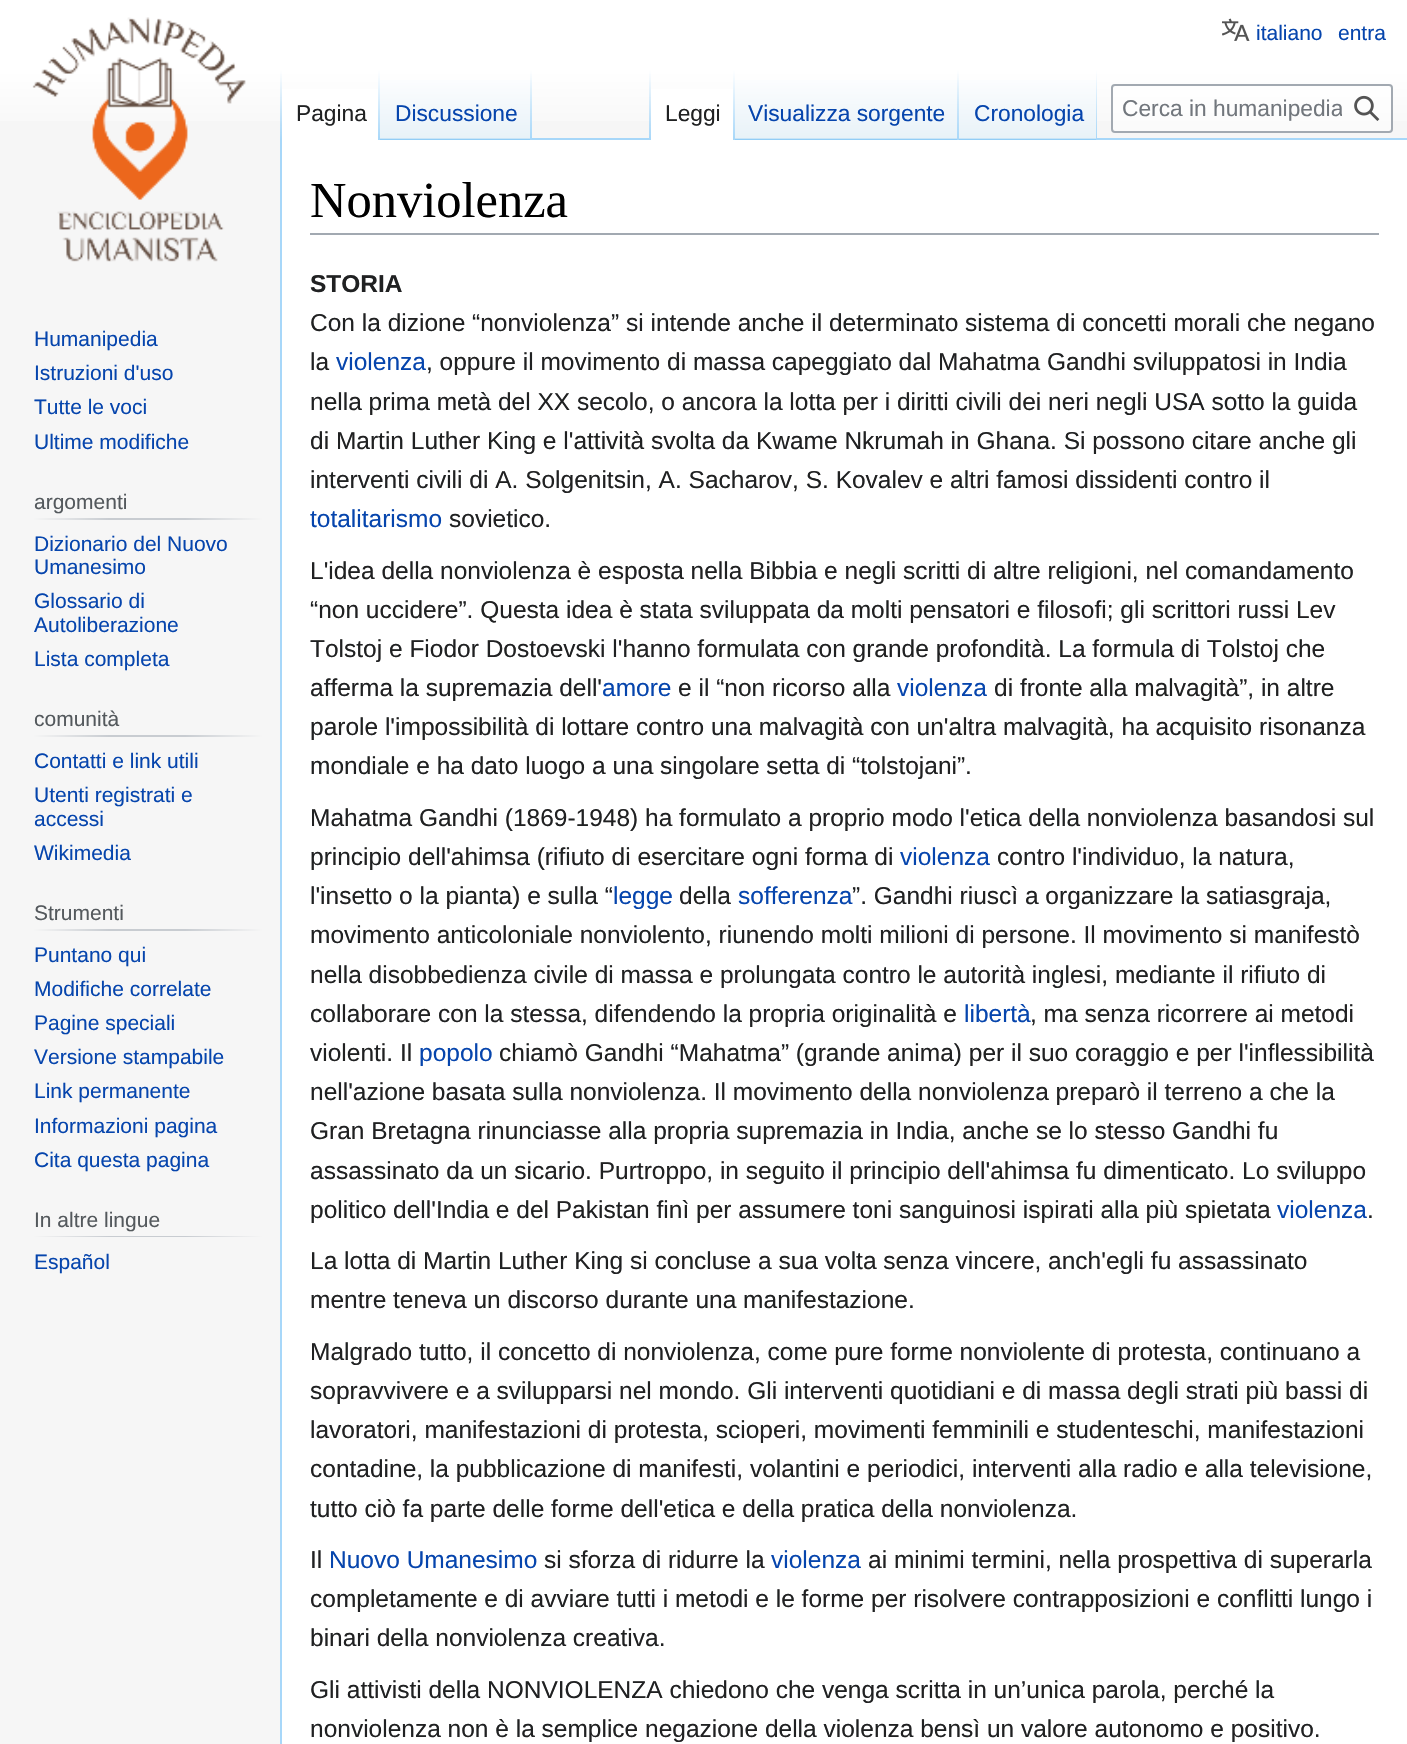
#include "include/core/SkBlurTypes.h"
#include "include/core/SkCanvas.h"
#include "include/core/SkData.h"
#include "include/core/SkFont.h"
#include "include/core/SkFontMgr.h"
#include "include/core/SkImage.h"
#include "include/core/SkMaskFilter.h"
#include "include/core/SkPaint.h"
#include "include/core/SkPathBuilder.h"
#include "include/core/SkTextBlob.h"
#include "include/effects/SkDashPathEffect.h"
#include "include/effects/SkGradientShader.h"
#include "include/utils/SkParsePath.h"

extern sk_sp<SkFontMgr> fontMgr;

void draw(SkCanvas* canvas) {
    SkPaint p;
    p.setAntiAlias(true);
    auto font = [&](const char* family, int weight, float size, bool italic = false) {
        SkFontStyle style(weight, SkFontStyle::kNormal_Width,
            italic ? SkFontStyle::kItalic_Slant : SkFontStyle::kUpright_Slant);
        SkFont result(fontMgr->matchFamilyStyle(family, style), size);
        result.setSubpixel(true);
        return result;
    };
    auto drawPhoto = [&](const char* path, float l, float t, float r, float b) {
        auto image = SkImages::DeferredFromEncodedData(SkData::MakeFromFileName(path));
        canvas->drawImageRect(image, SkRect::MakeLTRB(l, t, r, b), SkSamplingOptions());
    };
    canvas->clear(0xFFF6F6F6);
    {
        const SkColor colors[] = {0xFFFFFFFF, 0xFFF6F6F6};
        const float stops[] = {0.5f, 1};
        const SkPoint ends[] = {{704, 0}, {704, 140}};
        p.setShader(SkGradientShader::MakeLinear(ends, colors, stops, 2, SkTileMode::kClamp));
        p.setAlpha(255);
    }
    canvas->drawRect(SkRect::MakeLTRB(0, 0, 1407, 121), p);
    drawPhoto("media/1.png", 1222, 18, 1250, 41);
    auto font1 = font("Liberation Sans", 400, 21);
    p.setShader(nullptr);
    p.setColor(0xFF0645AD);
    canvas->drawString("italiano", 1256, 40, font1, p);
    canvas->drawString("entra", 1338, 40, font1, p);
    p.setColor(0xFFA7D7F9);
    canvas->drawRect(SkRect::MakeLTRB(280, 138, 282, 1744), p);
    {
        const SkColor colors[] = {0x00A7D7F9, 0xFFA7D7F9};
        const float stops[] = {0, 1};
        const SkPoint ends[] = {{281, 70}, {281, 140}};
        p.setShader(SkGradientShader::MakeLinear(ends, colors, stops, 2, SkTileMode::kClamp));
        p.setAlpha(255);
    }
    canvas->drawRect(SkRect::MakeLTRB(280, 70, 282, 140), p);
    p.setShader(nullptr);
    p.setColor(0xFFFFFFFF);
    canvas->drawRect(SkRect::MakeLTRB(282, 89, 378, 140), p);
    {
        const SkColor colors[] = {0xFFFFFFFF, 0xFFA7D7F9};
        const float stops[] = {0, 1};
        const SkPoint ends[] = {{379, 70}, {379, 140}};
        p.setShader(SkGradientShader::MakeLinear(ends, colors, stops, 2, SkTileMode::kClamp));
        p.setAlpha(255);
    }
    canvas->drawRect(SkRect::MakeLTRB(378, 70, 380, 140), p);
    auto font2 = font("Liberation Sans", 400, 22.75f);
    p.setShader(nullptr);
    p.setColor(0xFF202122);
    canvas->drawString("Pagina", 296, 121, font2, p);
    {
        const SkColor colors[] = {0xFF77C1F6, 0xFFE8F2F8, 0xFFFFFFFF};
        const float stops[] = {0, 0.03f, 1};
        const SkPoint ends[] = {{456, 140}, {456, 70}};
        p.setShader(SkGradientShader::MakeLinear(ends, colors, stops, 3, SkTileMode::kClamp));
        p.setAlpha(255);
    }
    canvas->drawRect(SkRect::MakeLTRB(380, 80, 532, 140), p);
    {
        const SkColor colors[] = {0x00A7D7F9, 0xFFA7D7F9};
        const float stops[] = {0, 1};
        const SkPoint ends[] = {{531, 70}, {531, 140}};
        p.setShader(SkGradientShader::MakeLinear(ends, colors, stops, 2, SkTileMode::kClamp));
        p.setAlpha(255);
    }
    canvas->drawRect(SkRect::MakeLTRB(530, 70, 532, 140), p);
    p.setShader(nullptr);
    p.setColor(0xFF0645AD);
    canvas->drawString("Discussione", 395, 121, font2, p);
    p.setColor(0xFFA7D7F9);
    canvas->drawRect(SkRect::MakeLTRB(532, 138, 1407, 140), p);
    {
        const SkColor colors[] = {0x00A7D7F9, 0xFFA7D7F9};
        const float stops[] = {0, 1};
        const SkPoint ends[] = {{650, 70}, {650, 140}};
        p.setShader(SkGradientShader::MakeLinear(ends, colors, stops, 2, SkTileMode::kClamp));
        p.setAlpha(255);
    }
    canvas->drawRect(SkRect::MakeLTRB(649, 70, 651, 140), p);
    p.setShader(nullptr);
    p.setColor(0xFFFFFFFF);
    canvas->drawRect(SkRect::MakeLTRB(651, 89, 733, 140), p);
    {
        const SkColor colors[] = {0xFFFFFFFF, 0xFFA7D7F9};
        const float stops[] = {0, 1};
        const SkPoint ends[] = {{734, 70}, {734, 140}};
        p.setShader(SkGradientShader::MakeLinear(ends, colors, stops, 2, SkTileMode::kClamp));
        p.setAlpha(255);
    }
    canvas->drawRect(SkRect::MakeLTRB(733, 70, 735, 140), p);
    p.setShader(nullptr);
    p.setColor(0xFF202122);
    canvas->drawString("Leggi", 665, 121, font2, p);
    {
        const SkColor colors[] = {0xFF77C1F6, 0xFFE8F2F8, 0xFFFFFFFF};
        const float stops[] = {0, 0.03f, 1};
        const SkPoint ends[] = {{847, 140}, {847, 70}};
        p.setShader(SkGradientShader::MakeLinear(ends, colors, stops, 3, SkTileMode::kClamp));
        p.setAlpha(255);
    }
    canvas->drawRect(SkRect::MakeLTRB(735, 80, 959, 140), p);
    {
        const SkColor colors[] = {0x00A7D7F9, 0xFFA7D7F9};
        const float stops[] = {0, 1};
        const SkPoint ends[] = {{958, 70}, {958, 140}};
        p.setShader(SkGradientShader::MakeLinear(ends, colors, stops, 2, SkTileMode::kClamp));
        p.setAlpha(255);
    }
    canvas->drawRect(SkRect::MakeLTRB(957, 70, 959, 140), p);
    p.setShader(nullptr);
    p.setColor(0xFF0645AD);
    canvas->drawString("Visualizza sorgente", 748, 121, font2, p);
    {
        const SkColor colors[] = {0xFF77C1F6, 0xFFE8F2F8, 0xFFFFFFFF};
        const float stops[] = {0, 0.03f, 1};
        const SkPoint ends[] = {{1028, 140}, {1028, 70}};
        p.setShader(SkGradientShader::MakeLinear(ends, colors, stops, 3, SkTileMode::kClamp));
        p.setAlpha(255);
    }
    canvas->drawRect(SkRect::MakeLTRB(959, 80, 1097, 140), p);
    {
        const SkColor colors[] = {0x00A7D7F9, 0xFFA7D7F9};
        const float stops[] = {0, 1};
        const SkPoint ends[] = {{1096, 70}, {1096, 140}};
        p.setShader(SkGradientShader::MakeLinear(ends, colors, stops, 2, SkTileMode::kClamp));
        p.setAlpha(255);
    }
    canvas->drawRect(SkRect::MakeLTRB(1096, 70, 1097, 140), p);
    p.setShader(nullptr);
    p.setColor(0xFF0645AD);
    canvas->drawString("Cronologia", 974, 121, font2, p);
    p.setColor(0x80FFFFFF);
    canvas->drawRoundRect(SkRect::MakeLTRB(1112, 85, 1392, 132), 3, 3, p);
    p.setStyle(SkPaint::kStroke_Style);
    p.setStrokeWidth(2);
    p.setColor(0xFFA2A9B1);
    canvas->drawRoundRect(SkRect::MakeLTRB(1112, 85, 1392, 132), 3, 3, p);
    canvas->save();
    canvas->clipRect(SkRect::MakeLTRB(1122, 96, 1342, 123));
    p.setStyle(SkPaint::kFill_Style);
    p.setColor(0xFF72777D);
    canvas->drawString("Cerca in humanipedia", 1122, 116, font2, p);
    canvas->restore();
    drawPhoto("media/2.png", 1354, 95, 1380, 121);
    drawPhoto("media/3.png", 32, 17, 246, 262);
    p.setColor(0xFF0645AD);
    {
        const struct { const char* s; float x, y; } items[] = {
            {"Humanipedia", 34, 346},
            {"Istruzioni d'uso", 34, 380},
            {"Tutte le voci", 34, 414},
            {"Ultime modifiche", 34, 449},
        };
        for (auto [s, x, y] : items) {
            canvas->drawString(s, x, y, font1, p);
        }
    }
    {
        const SkColor colors[] = {0xFFF6F6F6, 0xFFC8CCD1, 0xFFC8CCD1, 0xFFF6F6F6};
        const float stops[] = {0, 0.33f, 0.66f, 1};
        const SkPoint ends[] = {{33, 519}, {263, 519}};
        p.setShader(SkGradientShader::MakeLinear(ends, colors, stops, 4, SkTileMode::kClamp));
        p.setAlpha(255);
    }
    canvas->drawRect(SkRect::MakeLTRB(33, 518, 263, 520), p);
    p.setShader(nullptr);
    p.setColor(0xFF54595D);
    canvas->drawString("argomenti", 34, 509, font1, p);
    p.setColor(0xFF0645AD);
    {
        const struct { const char* s; float x, y; } items[] = {
            {"Dizionario del Nuovo", 34, 551},
            {"Umanesimo", 34, 574},
            {"Glossario di", 34, 608},
            {"Autoliberazione", 34, 632},
            {"Lista completa", 34, 666},
        };
        for (auto [s, x, y] : items) {
            canvas->drawString(s, x, y, font1, p);
        }
    }
    {
        const SkColor colors[] = {0xFFF6F6F6, 0xFFC8CCD1, 0xFFC8CCD1, 0xFFF6F6F6};
        const float stops[] = {0, 0.33f, 0.66f, 1};
        const SkPoint ends[] = {{33, 736}, {263, 736}};
        p.setShader(SkGradientShader::MakeLinear(ends, colors, stops, 4, SkTileMode::kClamp));
        p.setAlpha(255);
    }
    canvas->drawRect(SkRect::MakeLTRB(33, 735, 263, 737), p);
    p.setShader(nullptr);
    p.setColor(0xFF54595D);
    canvas->drawString("comunità", 34, 726, font1, p);
    p.setColor(0xFF0645AD);
    {
        const struct { const char* s; float x, y; } items[] = {
            {"Contatti e link utili", 34, 768},
            {"Utenti registrati e", 34, 802},
            {"accessi", 34, 826},
            {"Wikimedia", 34, 860},
        };
        for (auto [s, x, y] : items) {
            canvas->drawString(s, x, y, font1, p);
        }
    }
    {
        const SkColor colors[] = {0xFFF6F6F6, 0xFFC8CCD1, 0xFFC8CCD1, 0xFFF6F6F6};
        const float stops[] = {0, 0.33f, 0.66f, 1};
        const SkPoint ends[] = {{33, 930}, {263, 930}};
        p.setShader(SkGradientShader::MakeLinear(ends, colors, stops, 4, SkTileMode::kClamp));
        p.setAlpha(255);
    }
    canvas->drawRect(SkRect::MakeLTRB(33, 929, 263, 931), p);
    p.setShader(nullptr);
    p.setColor(0xFF54595D);
    canvas->drawString("Strumenti", 34, 920, font1, p);
    p.setColor(0xFF0645AD);
    {
        const struct { const char* s; float x, y; } items[] = {
            {"Puntano qui", 34, 962},
            {"Modifiche correlate", 34, 996},
            {"Pagine speciali", 34, 1030},
            {"Versione stampabile", 34, 1064},
            {"Link permanente", 34, 1098},
            {"Informazioni pagina", 34, 1133},
            {"Cita questa pagina", 34, 1167},
        };
        for (auto [s, x, y] : items) {
            canvas->drawString(s, x, y, font1, p);
        }
    }
    {
        const SkColor colors[] = {0xFFF6F6F6, 0xFFC8CCD1, 0xFFC8CCD1, 0xFFF6F6F6};
        const float stops[] = {0, 0.33f, 0.66f, 1};
        const SkPoint ends[] = {{33, 1236}, {263, 1236}};
        p.setShader(SkGradientShader::MakeLinear(ends, colors, stops, 4, SkTileMode::kClamp));
        p.setAlpha(255);
    }
    canvas->drawRect(SkRect::MakeLTRB(33, 1236, 263, 1237), p);
    p.setShader(nullptr);
    p.setColor(0xFF54595D);
    canvas->drawString("In altre lingue", 34, 1227, font1, p);
    p.setColor(0xFF0645AD);
    canvas->drawString("Español", 34, 1269, font1, p);
    p.setColor(0xFFFFFFFF);
    canvas->drawRect(SkRect::MakeLTRB(282, 140, 1407, 1744), p);
    p.setColor(0xFFA2A9B1);
    canvas->drawRect(SkRect::MakeLTRB(310, 233, 1379, 235), p);
    auto font3 = font("Liberation Serif", 400, 50.5f);
    p.setColor(0xFF000000);
    canvas->drawString("Nonviolenza", 310, 217, font3, p);
    auto font4 = font("Liberation Sans", 700, 24.5f);
    p.setColor(0xFF202122);
    canvas->drawString("STORIA", 310, 292, font4, p);
    auto font5 = font("Liberation Sans", 400, 24.5f);
    canvas->drawString("Con la dizione “nonviolenza” si intende anche il determinato sistema di concetti morali che negano", 310, 331, font5, p);
    canvas->drawString("la", 310, 370, font5, p);
    p.setColor(0xFF0645AD);
    canvas->drawString("violenza", 336, 370, font5, p);
    p.setColor(0xFF202122);
    {
        const struct { const char* s; float x, y; } items[] = {
            {", oppure il movimento di massa capeggiato dal Mahatma Gandhi sviluppatosi in India", 426, 370},
            {"nella prima metà del XX secolo, o ancora la lotta per i diritti civili dei neri negli USA sotto la guida", 310, 410},
            {"di Martin Luther King e l'attività svolta da Kwame Nkrumah in Ghana. Si possono citare anche gli", 310, 449},
            {"interventi civili di A. Solgenitsin, A. Sacharov, S. Kovalev e altri famosi dissidenti contro il", 310, 488},
        };
        for (auto [s, x, y] : items) {
            canvas->drawString(s, x, y, font5, p);
        }
    }
    p.setColor(0xFF0645AD);
    canvas->drawString("totalitarismo", 310, 527, font5, p);
    p.setColor(0xFF202122);
    {
        const struct { const char* s; float x, y; } items[] = {
            {"sovietico.", 449, 527},
            {"L'idea della nonviolenza è esposta nella Bibbia e negli scritti di altre religioni, nel comandamento", 310, 579},
            {"“non uccidere”. Questa idea è stata sviluppata da molti pensatori e filosofi; gli scrittori russi Lev", 310, 618},
            {"Tolstoj e Fiodor Dostoevski l'hanno formulata con grande profondità. La formula di Tolstoj che", 310, 657},
            {"afferma la supremazia dell'", 310, 696},
        };
        for (auto [s, x, y] : items) {
            canvas->drawString(s, x, y, font5, p);
        }
    }
    p.setColor(0xFF0645AD);
    canvas->drawString("amore", 602, 696, font5, p);
    p.setColor(0xFF202122);
    canvas->drawString("e il “non ricorso alla", 678, 696, font5, p);
    p.setColor(0xFF0645AD);
    canvas->drawString("violenza", 897, 696, font5, p);
    p.setColor(0xFF202122);
    {
        const struct { const char* s; float x, y; } items[] = {
            {"di fronte alla malvagità”, in altre", 994, 696},
            {"parole l'impossibilità di lottare contro una malvagità con un'altra malvagità, ha acquisito risonanza", 310, 735},
            {"mondiale e ha dato luogo a una singolare setta di “tolstojani”.", 310, 774},
            {"Mahatma Gandhi (1869-1948) ha formulato a proprio modo l'etica della nonviolenza basandosi sul", 310, 826},
            {"principio dell'ahimsa (rifiuto di esercitare ogni forma di", 310, 865},
        };
        for (auto [s, x, y] : items) {
            canvas->drawString(s, x, y, font5, p);
        }
    }
    p.setColor(0xFF0645AD);
    canvas->drawString("violenza", 900, 865, font5, p);
    p.setColor(0xFF202122);
    canvas->drawString("contro l'individuo, la natura,", 997, 865, font5, p);
    canvas->drawString("l'insetto o la pianta) e sulla “", 310, 904, font5, p);
    p.setColor(0xFF0645AD);
    canvas->drawString("legge", 613, 904, font5, p);
    p.setColor(0xFF202122);
    canvas->drawString("della", 679, 904, font5, p);
    p.setColor(0xFF0645AD);
    canvas->drawString("sofferenza", 738, 904, font5, p);
    p.setColor(0xFF202122);
    {
        const struct { const char* s; float x, y; } items[] = {
            {"”. Gandhi riuscì a organizzare la satiasgraja,", 852, 904},
            {"movimento anticoloniale nonviolento, riunendo molti milioni di persone. Il movimento si manifestò", 310, 943},
            {"nella disobbedienza civile di massa e prolungata contro le autorità inglesi, mediante il rifiuto di", 310, 983},
            {"collaborare con la stessa, difendendo la propria originalità e", 310, 1022},
        };
        for (auto [s, x, y] : items) {
            canvas->drawString(s, x, y, font5, p);
        }
    }
    p.setColor(0xFF0645AD);
    canvas->drawString("libertà", 964, 1022, font5, p);
    p.setColor(0xFF202122);
    canvas->drawString(", ma senza ricorrere ai metodi", 1030, 1022, font5, p);
    canvas->drawString("violenti. Il", 310, 1061, font5, p);
    p.setColor(0xFF0645AD);
    canvas->drawString("popolo", 419, 1061, font5, p);
    p.setColor(0xFF202122);
    {
        const struct { const char* s; float x, y; } items[] = {
            {"chiamò Gandhi “Mahatma” (grande anima) per il suo coraggio e per l'inflessibilità", 499, 1061},
            {"nell'azione basata sulla nonviolenza. Il movimento della nonviolenza preparò il terreno a che la", 310, 1100},
            {"Gran Bretagna rinunciasse alla propria supremazia in India, anche se lo stesso Gandhi fu", 310, 1139},
            {"assassinato da un sicario. Purtroppo, in seguito il principio dell'ahimsa fu dimenticato. Lo sviluppo", 310, 1179},
            {"politico dell'India e del Pakistan finì per assumere toni sanguinosi ispirati alla più spietata", 310, 1218},
        };
        for (auto [s, x, y] : items) {
            canvas->drawString(s, x, y, font5, p);
        }
    }
    p.setColor(0xFF0645AD);
    canvas->drawString("violenza", 1277, 1218, font5, p);
    p.setColor(0xFF202122);
    {
        const struct { const char* s; float x, y; } items[] = {
            {".", 1367, 1218},
            {"La lotta di Martin Luther King si concluse a sua volta senza vincere, anch'egli fu assassinato", 310, 1269},
            {"mentre teneva un discorso durante una manifestazione.", 310, 1308},
            {"Malgrado tutto, il concetto di nonviolenza, come pure forme nonviolente di protesta, continuano a", 310, 1360},
            {"sopravvivere e a svilupparsi nel mondo. Gli interventi quotidiani e di massa degli strati più bassi di", 310, 1399},
            {"lavoratori, manifestazioni di protesta, scioperi, movimenti femminili e studenteschi, manifestazioni", 310, 1438},
            {"contadine, la pubblicazione di manifesti, volantini e periodici, interventi alla radio e alla televisione,", 310, 1477},
            {"tutto ciò fa parte delle forme dell'etica e della pratica della nonviolenza.", 310, 1517},
            {"Il", 310, 1568},
        };
        for (auto [s, x, y] : items) {
            canvas->drawString(s, x, y, font5, p);
        }
    }
    p.setColor(0xFF0645AD);
    canvas->drawString("Nuovo Umanesimo", 329, 1568, font5, p);
    p.setColor(0xFF202122);
    canvas->drawString("si sforza di ridurre la", 544, 1568, font5, p);
    p.setColor(0xFF0645AD);
    canvas->drawString("violenza", 771, 1568, font5, p);
    p.setColor(0xFF202122);
    {
        const struct { const char* s; float x, y; } items[] = {
            {"ai minimi termini, nella prospettiva di superarla", 868, 1568},
            {"completamente e di avviare tutti i metodi e le forme per risolvere contrapposizioni e conflitti lungo i", 310, 1607},
            {"binari della nonviolenza creativa.", 310, 1646},
            {"Gli attivisti della NONVIOLENZA chiedono che venga scritta in un’unica parola, perché la", 310, 1698},
            {"nonviolenza non è la semplice negazione della violenza bensì un valore autonomo e positivo.", 310, 1737},
        };
        for (auto [s, x, y] : items) {
            canvas->drawString(s, x, y, font5, p);
        }
    }
}
